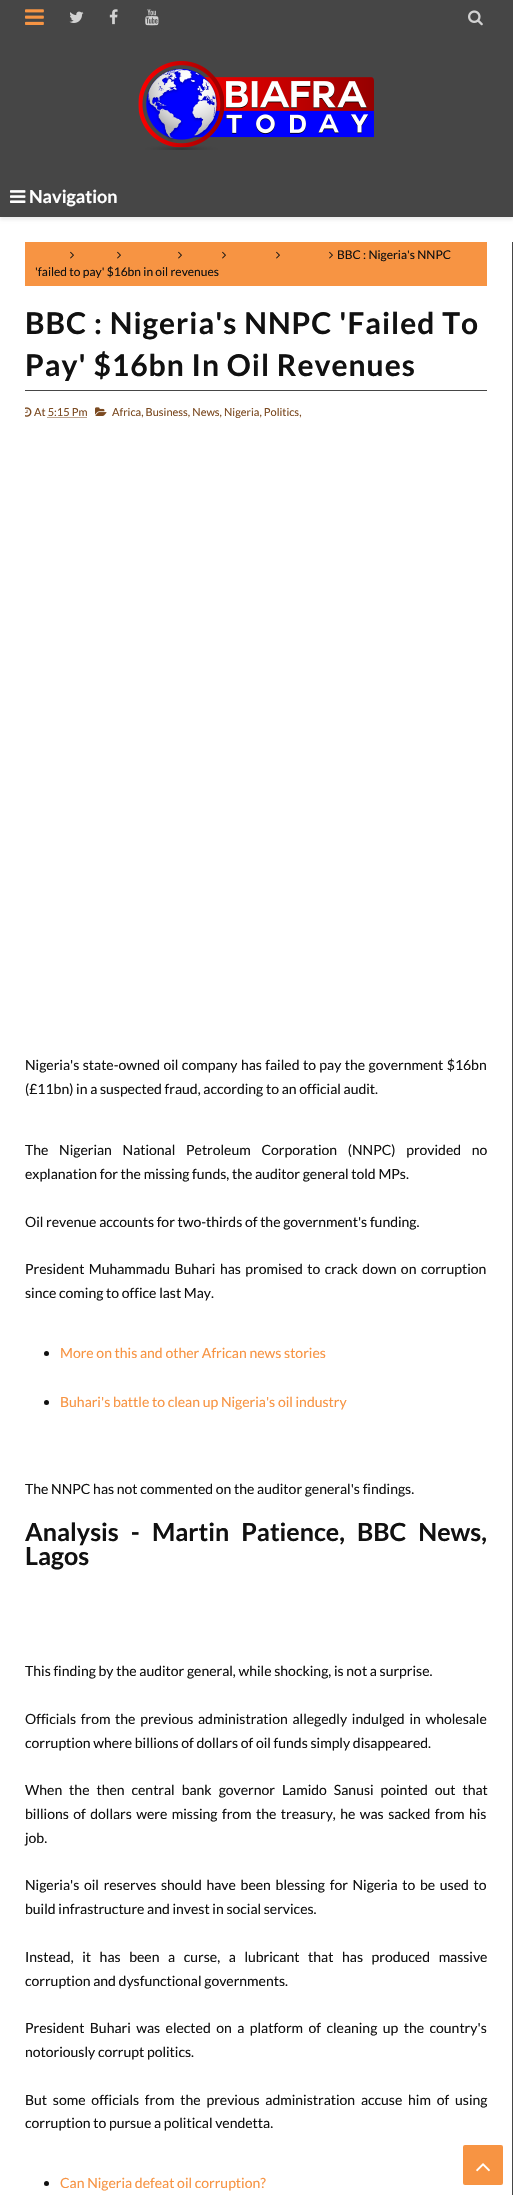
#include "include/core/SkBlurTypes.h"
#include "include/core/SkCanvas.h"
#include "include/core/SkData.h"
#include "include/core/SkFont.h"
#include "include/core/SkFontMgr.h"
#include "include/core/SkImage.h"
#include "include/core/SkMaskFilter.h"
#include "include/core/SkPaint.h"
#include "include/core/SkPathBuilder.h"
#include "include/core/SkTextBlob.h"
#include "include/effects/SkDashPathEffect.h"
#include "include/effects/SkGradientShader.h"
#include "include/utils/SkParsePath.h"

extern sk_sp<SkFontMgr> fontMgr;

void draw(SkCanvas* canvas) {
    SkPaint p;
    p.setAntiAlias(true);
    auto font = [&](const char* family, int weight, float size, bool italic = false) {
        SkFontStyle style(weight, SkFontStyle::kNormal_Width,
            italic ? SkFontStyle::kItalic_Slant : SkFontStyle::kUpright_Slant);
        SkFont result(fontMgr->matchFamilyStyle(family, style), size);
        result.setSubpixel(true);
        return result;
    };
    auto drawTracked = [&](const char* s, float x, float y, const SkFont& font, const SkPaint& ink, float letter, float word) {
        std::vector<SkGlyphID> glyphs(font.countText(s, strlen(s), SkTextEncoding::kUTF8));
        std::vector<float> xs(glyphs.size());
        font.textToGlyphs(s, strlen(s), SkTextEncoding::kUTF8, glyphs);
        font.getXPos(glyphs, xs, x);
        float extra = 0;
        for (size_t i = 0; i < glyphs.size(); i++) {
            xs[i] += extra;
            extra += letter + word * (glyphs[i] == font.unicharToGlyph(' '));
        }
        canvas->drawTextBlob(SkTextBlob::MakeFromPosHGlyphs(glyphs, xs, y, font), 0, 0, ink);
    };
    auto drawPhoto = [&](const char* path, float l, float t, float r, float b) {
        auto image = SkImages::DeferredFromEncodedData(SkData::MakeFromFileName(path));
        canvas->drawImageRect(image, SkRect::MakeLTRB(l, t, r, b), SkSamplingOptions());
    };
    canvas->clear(0xFFFFFFFF);
    p.setColor(0xFF464646);
    canvas->drawRect(SkRect::MakeLTRB(0, 0, 513, 175), p);
    drawPhoto("media/1.png", 25, 9, 44, 25);
    drawPhoto("media/2.png", 69, 11, 84, 23);
    drawPhoto("media/3.png", 109, 9, 118, 25);
    drawPhoto("media/4.png", 145, 9, 159, 26);
    drawPhoto("media/5.png", 468, 10, 483, 26);
    drawPhoto("media/6.png", 138, 61, 374, 150);
    p.setColor(0x12000000);
    p.setMaskFilter(SkMaskFilter::MakeBlur(kNormal_SkBlurStyle, 1.5f));
    canvas->drawRect(SkRect::MakeLTRB(0, 178, 513, 220), p);
    p.setMaskFilter(nullptr);
    p.setColor(0xFF464646);
    canvas->drawRect(SkRect::MakeLTRB(0, 175, 513, 217), p);
    drawPhoto("media/7.png", 10, 190, 26, 203);
    auto font1 = font("Lato", 700, 18);
    p.setColor(0xFFFFFFFF);
    canvas->drawString("Navigation", 29, 203, font1, p);
    p.setColor(0xFF464646);
    canvas->drawRect(SkRect::MakeLTRB(512, 242, 513, 2195), p);
    p.setColor(0xFFF79443);
    canvas->drawRect(SkRect::MakeLTRB(25, 242, 487, 286), p);
    drawPhoto("media/8.png", 70, 251, 74, 259);
    drawPhoto("media/8.png", 117, 251, 121, 259);
    drawPhoto("media/8.png", 178, 251, 182, 259);
    drawPhoto("media/8.png", 222, 251, 226, 259);
    drawPhoto("media/8.png", 276, 251, 280, 259);
    drawPhoto("media/8.png", 329, 251, 333, 259);
    auto font2 = font("Lato", 400, 12);
    p.setColor(0xFF111111);
    canvas->drawString("BBC : Nigeria's NNPC", 337, 259, font2, p);
    canvas->drawString("'failed to pay' $16bn in oil revenues", 35, 276, font2, p);
    p.setColor(0xFF464646);
    canvas->drawRect(SkRect::MakeLTRB(25, 390, 487, 391), p);
    auto font3 = font("Lato", 700, 30);
    p.setColor(0xFF111111);
    drawTracked("BBC : Nigeria's NNPC 'Failed To", 25, 334, font3, p, 1, 0);
    drawTracked("Pay' $16bn In Oil Revenues", 25, 376, font3, p, 1, 0);
    drawPhoto("media/9.png", 25, 407, 32, 417);
    auto font4 = font("Lato", 400, 11);
    p.setColor(0xFF7B4A21);
    canvas->drawString("At 5:15 Pm", 34, 416, font4, p);
    p.setStyle(SkPaint::kStroke_Style);
    p.setStrokeWidth(1);
    p.setPathEffect(SkDashPathEffect::Make({{1, 1}}, 0));
    canvas->drawPath(SkPathBuilder().moveTo(47.5f, 417.5f).lineTo(87, 417.5f).detach(), p);
    p.setPathEffect(nullptr);
    drawPhoto("media/10.png", 95, 407, 107, 416);
    p.setStyle(SkPaint::kFill_Style);
    canvas->drawString("Africa, Business, News, Nigeria, Politics,", 112, 416, font4, p);
    auto font5 = font("Lato", 400, 14);
    p.setColor(0xFF111111);
    drawTracked("Nigeria's state-owned oil company has failed to pay the government $16bn", 25, 1070, font5, p, 0, 0.75f);
    canvas->drawString("(£11bn) in a suspected fraud, according to an official audit.", 25, 1094, font5, p);
    drawTracked("The Nigerian National Petroleum Corporation (NNPC) provided no", 25, 1155, font5, p, 0, 8);
    canvas->drawString("explanation for the missing funds, the auditor general told MPs.", 25, 1179, font5, p);
    canvas->drawString("Oil revenue accounts for two-thirds of the government's funding.", 25, 1227, font5, p);
    drawTracked("President Muhammadu Buhari has promised to crack down on corruption", 25, 1274, font5, p, 0, 1.75f);
    canvas->drawString("since coming to office last May.", 25, 1298, font5, p);
    canvas->drawCircle(46.5f, 1353.5f, 2.5f, p);
    p.setColor(0xFFF79443);
    canvas->drawString("More on this and other African news stories", 60, 1358, font5, p);
    p.setColor(0xFF111111);
    canvas->drawCircle(46.5f, 1402.5f, 2.5f, p);
    p.setColor(0xFFF79443);
    canvas->drawString("Buhari's battle to clean up Nigeria's oil industry", 60, 1407, font5, p);
    p.setColor(0xFF111111);
    canvas->drawString("The NNPC has not commented on the auditor general's findings.", 25, 1494, font5, p);
    auto font6 = font("Lato", 700, 25);
    drawTracked("Analysis - Martin Patience, BBC News,", 25, 1541, font6, p, 0, 7.25f);
    canvas->drawString("Lagos", 25, 1565, font6, p);
    canvas->drawString("This finding by the auditor general, while shocking, is not a surprise.", 25, 1676, font5, p);
    drawTracked("Officials from the previous administration allegedly indulged in wholesale", 25, 1724, font5, p, 0, 2);
    canvas->drawString("corruption where billions of dollars of oil funds simply disappeared.", 25, 1748, font5, p);
    drawTracked("When the then central bank governor Lamido Sanusi pointed out that", 25, 1795, font5, p, 0, 4.25f);
    drawTracked("billions of dollars were missing from the treasury, he was sacked from his", 25, 1819, font5, p, 0, 1.75f);
    canvas->drawString("job.", 25, 1843, font5, p);
    drawTracked("Nigeria's oil reserves should have been blessing for Nigeria to be used to", 25, 1890, font5, p, 0, 2);
    canvas->drawString("build infrastructure and invest in social services.", 25, 1914, font5, p);
    drawTracked("Instead, it has been a curse, a lubricant that has produced massive", 25, 1962, font5, p, 0, 5.9f);
    canvas->drawString("corruption and dysfunctional governments.", 25, 1986, font5, p);
    drawTracked("President Buhari was elected on a platform of cleaning up the country's", 25, 2033, font5, p, 0, 2.75f);
    canvas->drawString("notoriously corrupt politics.", 25, 2057, font5, p);
    drawTracked("But some officials from the previous administration accuse him of using", 25, 2105, font5, p, 0, 3.1f);
    canvas->drawString("corruption to pursue a political vendetta.", 25, 2128, font5, p);
    canvas->drawCircle(46.5f, 2183.5f, 2.5f, p);
    p.setColor(0xFFF79443);
    canvas->drawString("Can Nigeria defeat oil corruption?", 60, 2188, font5, p);
    canvas->drawRoundRect(SkRect::MakeLTRB(463, 2145, 503, 2185), 2, 2, p);
    drawPhoto("media/11.png", 476, 2163, 490, 2172);
}
